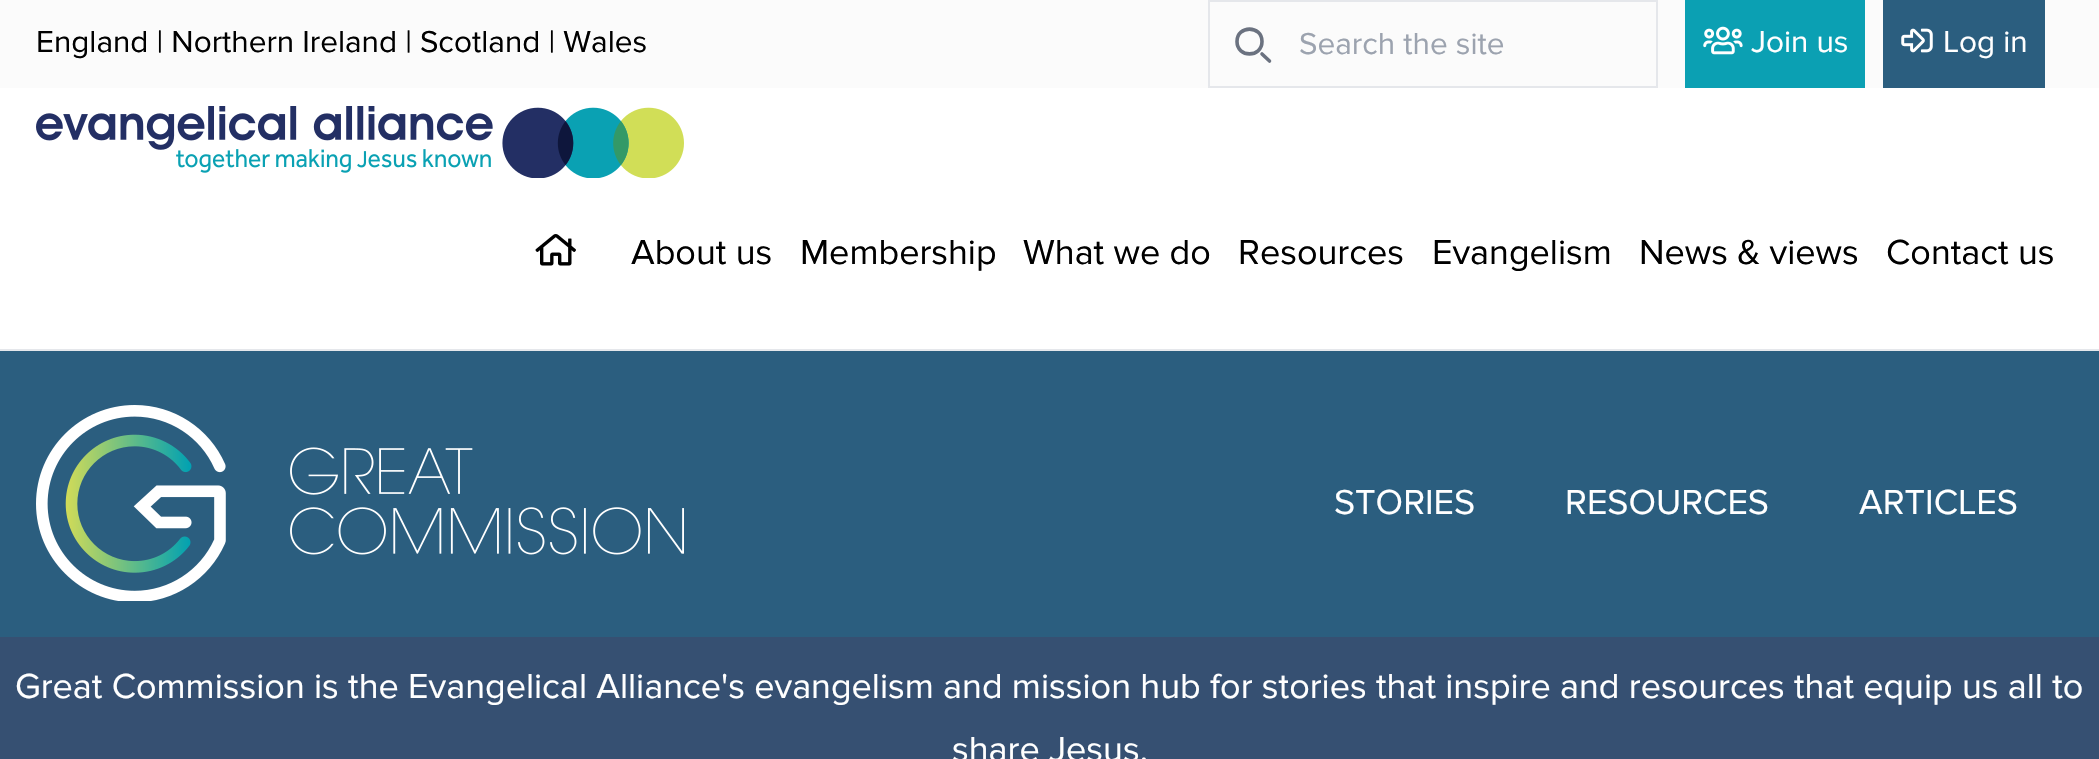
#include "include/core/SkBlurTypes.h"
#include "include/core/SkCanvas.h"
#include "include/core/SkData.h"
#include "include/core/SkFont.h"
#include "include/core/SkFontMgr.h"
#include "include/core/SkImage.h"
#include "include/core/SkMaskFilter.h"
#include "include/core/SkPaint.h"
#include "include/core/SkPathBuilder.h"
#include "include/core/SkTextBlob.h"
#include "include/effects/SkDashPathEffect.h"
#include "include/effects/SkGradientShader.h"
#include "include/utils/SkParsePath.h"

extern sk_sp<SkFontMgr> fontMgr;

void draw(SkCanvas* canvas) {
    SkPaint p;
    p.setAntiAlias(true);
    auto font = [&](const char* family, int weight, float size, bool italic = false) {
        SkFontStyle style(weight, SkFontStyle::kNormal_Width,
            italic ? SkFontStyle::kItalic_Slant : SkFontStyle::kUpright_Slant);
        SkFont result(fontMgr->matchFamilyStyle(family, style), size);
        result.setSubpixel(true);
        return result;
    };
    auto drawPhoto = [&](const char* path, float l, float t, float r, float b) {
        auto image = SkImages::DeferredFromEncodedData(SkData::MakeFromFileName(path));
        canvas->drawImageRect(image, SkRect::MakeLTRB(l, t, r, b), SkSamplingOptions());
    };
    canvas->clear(0xFFFFFFFF);
    p.setColor(0xFFFBFBFB);
    canvas->drawRect(SkRect::MakeLTRB(0, 0, 2099, 88), p);
    auto font1 = font("Proxima Nova", 400, 31.5f);
    p.setColor(0xFF000000);
    canvas->drawString("England | Northern Ireland | Scotland | Wales", 36, 52, font1, p);
    p.setStyle(SkPaint::kStroke_Style);
    p.setStrokeWidth(2);
    p.setColor(0xFFE5E7EB);
    canvas->drawRect(SkRect::MakeLTRB(1209, 1, 1657, 87), p);
    p.setStrokeWidth(3.6f);
    p.setStrokeCap(SkPaint::kRound_Cap);
    p.setStrokeJoin(SkPaint::kRound_Join);
    p.setColor(0xFF6B7280);
    canvas->drawPath(SkPathBuilder().moveTo(1269.5f, 61).lineTo(1262, 54).moveTo(1262, 41.5f).cubicTo(1262, 58, 1237, 58, 1237, 41.5f).cubicTo(1237, 25, 1262, 25, 1262, 41.5f).close().detach(), p);
    p.setStyle(SkPaint::kFill_Style);
    p.setColor(0xFF9CA3AF);
    canvas->drawString("Search the site", 1299, 54, font1, p);
    p.setColor(0xFF0BA0B3);
    canvas->drawRect(SkRect::MakeLTRB(1685, 0, 1865, 88), p);
    drawPhoto("media/1.png", 1703, 26, 1743, 55);
    p.setColor(0xFFFFFFFF);
    canvas->drawString("Join us", 1751, 52, font1, p);
    p.setColor(0xFF2B5E7F);
    canvas->drawRect(SkRect::MakeLTRB(1883, 0, 2045, 88), p);
    drawPhoto("media/2.png", 1901, 28, 1933, 53);
    p.setColor(0xFFFFFFFF);
    canvas->drawString("Log in", 1943, 52, font1, p);
    p.setColor(0xFFE5E7EB);
    canvas->drawRect(SkRect::MakeLTRB(0, 349, 2099, 351), p);
    drawPhoto("media/3.png", 36, 106, 684, 178);
    drawPhoto("media/4.png", 535, 234, 576, 266);
    auto font2 = font("Proxima Nova", 400, 36);
    p.setColor(0xFF000000);
    {
        const struct { const char* s; float x, y; } items[] = {
            {"About us", 631, 264},
            {"Membership", 800, 264},
            {"What we do", 1023, 264},
            {"Resources", 1238, 264},
            {"Evangelism", 1432, 264},
            {"News & views", 1639, 264},
            {"Contact us", 1886, 264},
        };
        for (auto [s, x, y] : items) {
            canvas->drawString(s, x, y, font2, p);
        }
    }
    p.setColor(0xFF2B5E7F);
    canvas->drawRect(SkRect::MakeLTRB(0, 351, 2099, 637), p);
    drawPhoto("media/5.png", 36, 405, 684, 601);
    p.setColor(0xFFFFFFFF);
    {
        const struct { const char* s; float x, y; } items[] = {
            {"STORIES", 1334, 514},
            {"RESOURCES", 1565, 514},
            {"ARTICLES", 1859, 514},
        };
        for (auto [s, x, y] : items) {
            canvas->drawString(s, x, y, font2, p);
        }
    }
    p.setColor(0xFF365072);
    canvas->drawRect(SkRect::MakeLTRB(0, 637, 2099, 759), p);
    p.setColor(0xFFFFFFFF);
    canvas->drawString("Great Commission is the Evangelical Alliance's evangelism and mission hub for stories that inspire and resources that equip us all to", 15, 698, font2, p);
    canvas->drawString("share Jesus.", 952, 761, font2, p);
}
